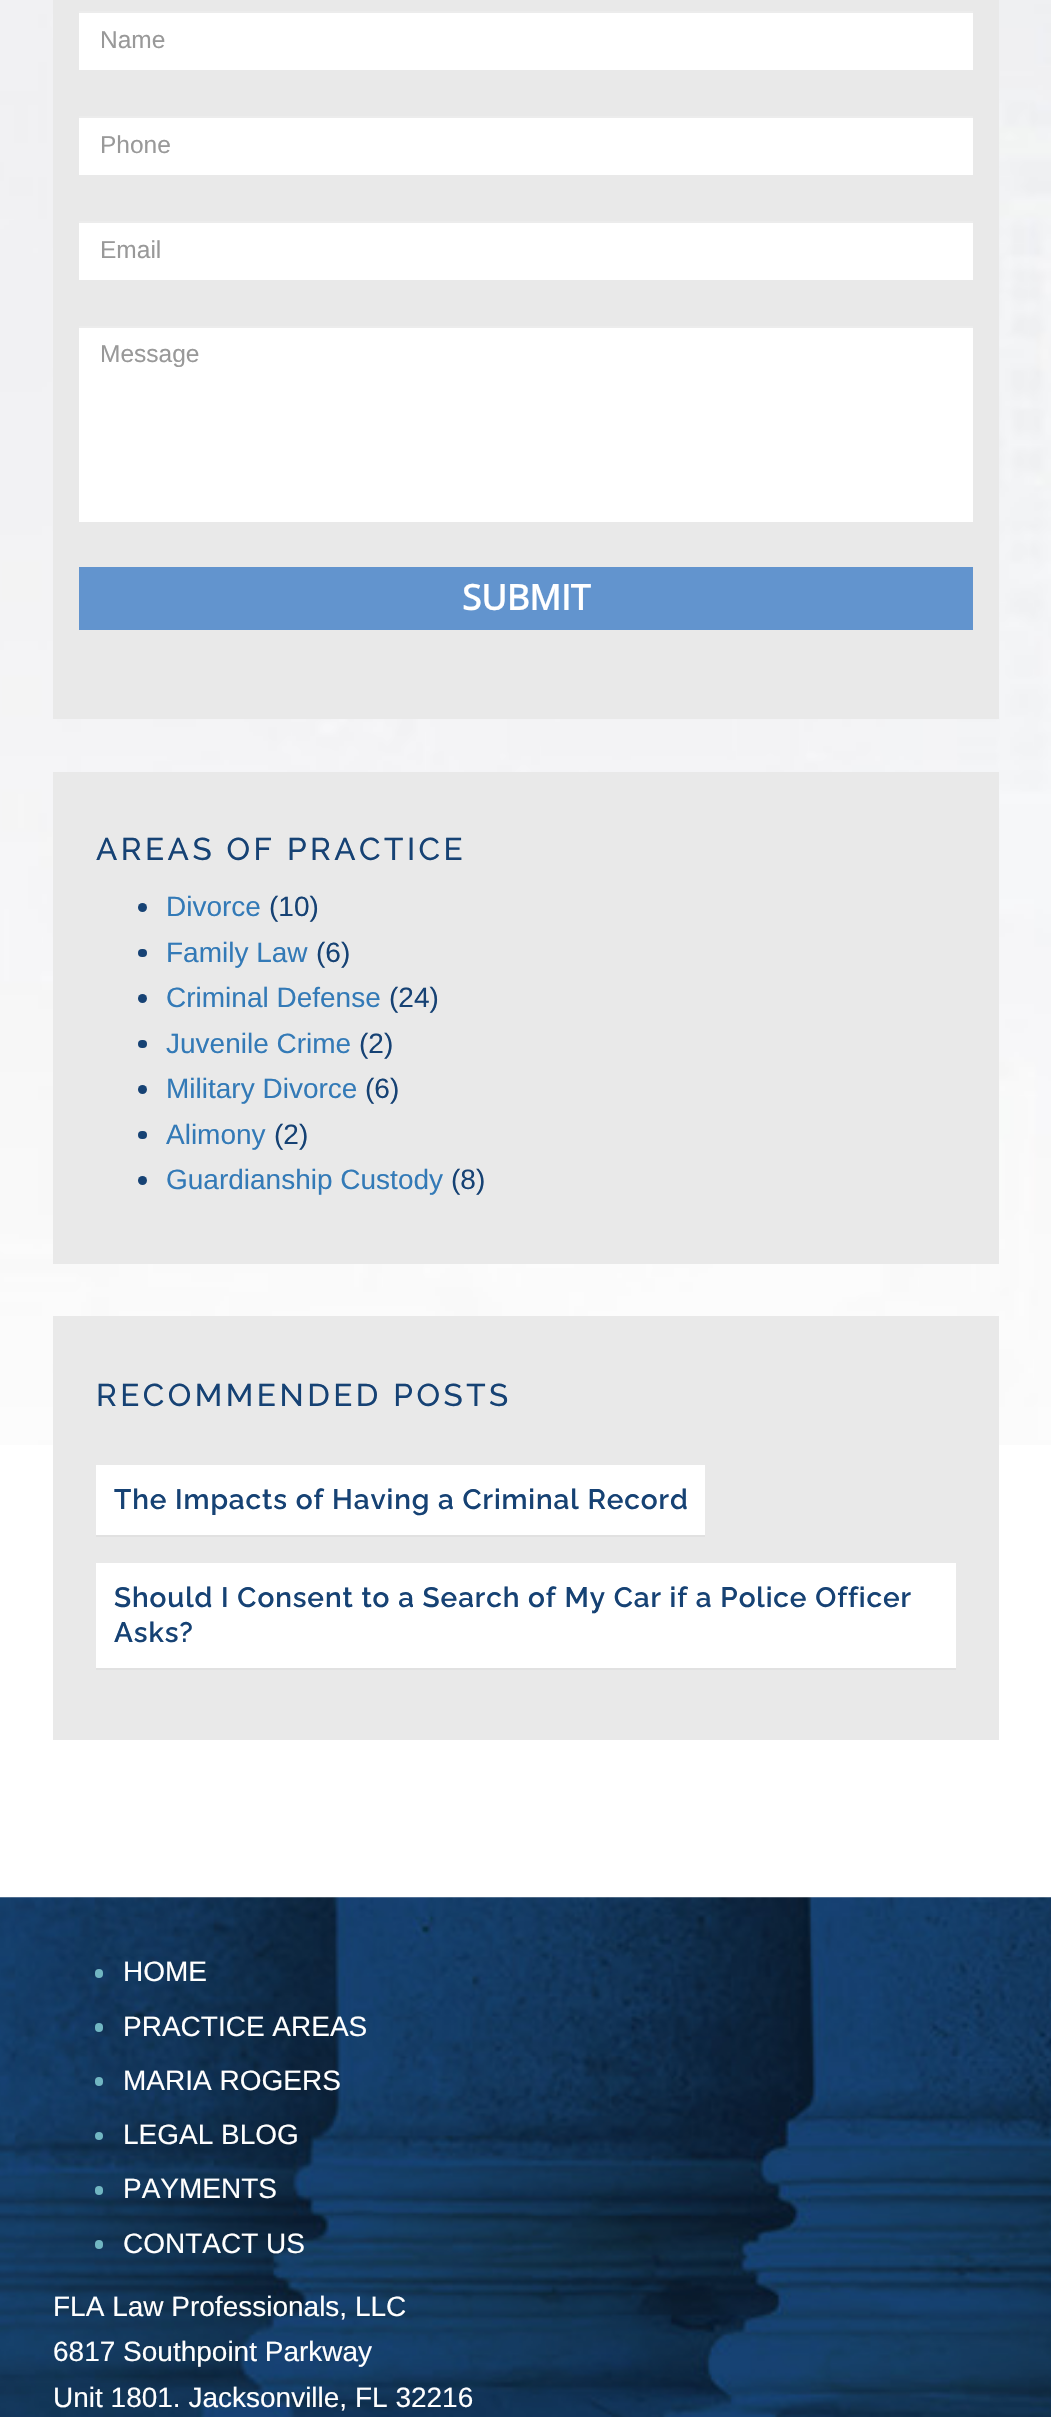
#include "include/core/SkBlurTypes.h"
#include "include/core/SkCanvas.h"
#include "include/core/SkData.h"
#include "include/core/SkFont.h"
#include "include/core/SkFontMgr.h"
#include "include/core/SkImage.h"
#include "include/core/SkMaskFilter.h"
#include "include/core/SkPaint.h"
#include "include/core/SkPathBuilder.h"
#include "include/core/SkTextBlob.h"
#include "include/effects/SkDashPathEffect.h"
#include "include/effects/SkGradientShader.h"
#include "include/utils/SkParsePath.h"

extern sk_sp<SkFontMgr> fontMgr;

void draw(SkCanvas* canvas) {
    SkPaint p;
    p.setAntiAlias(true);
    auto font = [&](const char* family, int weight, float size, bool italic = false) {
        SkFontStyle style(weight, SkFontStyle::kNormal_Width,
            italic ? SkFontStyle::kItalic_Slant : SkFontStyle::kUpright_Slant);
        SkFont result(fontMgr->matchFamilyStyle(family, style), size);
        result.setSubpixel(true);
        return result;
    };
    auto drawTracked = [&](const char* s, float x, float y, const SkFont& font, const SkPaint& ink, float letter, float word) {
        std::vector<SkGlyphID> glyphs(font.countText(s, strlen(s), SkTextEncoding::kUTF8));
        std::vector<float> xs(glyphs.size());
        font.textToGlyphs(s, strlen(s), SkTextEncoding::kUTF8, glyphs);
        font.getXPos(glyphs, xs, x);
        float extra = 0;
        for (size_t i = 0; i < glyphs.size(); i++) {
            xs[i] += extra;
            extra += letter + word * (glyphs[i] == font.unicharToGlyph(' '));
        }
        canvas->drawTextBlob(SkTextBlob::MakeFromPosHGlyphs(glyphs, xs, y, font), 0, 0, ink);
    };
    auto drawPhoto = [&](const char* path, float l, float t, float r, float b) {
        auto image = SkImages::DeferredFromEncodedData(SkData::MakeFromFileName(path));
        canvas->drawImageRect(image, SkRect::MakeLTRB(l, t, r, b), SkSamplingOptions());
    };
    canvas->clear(0xFFFFFFFF);
    drawPhoto("media/1.png", 0, 0, 1051, 1445);
    {
        const struct { float l, t, r, b; SkColor color; } items[] = {
            {53, 0, 999, 719, 0xFFE9E9E9},
            {79, 13, 973, 70, 0xFFFFFFFF},
            {79, 11, 973, 13, 0xFFECECEC},
        };
        for (auto [l, t, r, b, color] : items) {
            p.setColor(color);
            canvas->drawRect(SkRect::MakeLTRB(l, t, r, b), p);
        }
    }
    auto font1 = font("Liberation Sans", 400, 24.5f);
    p.setColor(0xFF999999);
    canvas->drawString("Name", 100, 48, font1, p);
    p.setColor(0xFFFFFFFF);
    canvas->drawRect(SkRect::MakeLTRB(79, 118, 973, 175), p);
    p.setColor(0xFFECECEC);
    canvas->drawRect(SkRect::MakeLTRB(79, 116, 973, 118), p);
    p.setColor(0xFF999999);
    canvas->drawString("Phone", 100, 153, font1, p);
    p.setColor(0xFFFFFFFF);
    canvas->drawRect(SkRect::MakeLTRB(79, 223, 973, 280), p);
    p.setColor(0xFFECECEC);
    canvas->drawRect(SkRect::MakeLTRB(79, 221, 973, 223), p);
    p.setColor(0xFF999999);
    canvas->drawString("Email", 100, 258, font1, p);
    p.setColor(0xFFFFFFFF);
    canvas->drawRect(SkRect::MakeLTRB(79, 328, 973, 522), p);
    p.setColor(0xFFECECEC);
    canvas->drawRect(SkRect::MakeLTRB(79, 326, 973, 328), p);
    p.setColor(0xFF999999);
    canvas->drawString("Message", 100, 362, font1, p);
    p.setColor(0xFF6294CE);
    canvas->drawRect(SkRect::MakeLTRB(79, 567, 973, 630), p);
    auto font2 = font("Open Sans", 700, 35);
    p.setColor(0xFFFFFFFF);
    canvas->drawString("SUBMIT", 462, 610, font2, p);
    p.setColor(0xFFE9E9E9);
    canvas->drawRect(SkRect::MakeLTRB(53, 772, 999, 1264), p);
    auto font3 = font("Raleway", 500, 31.5f);
    p.setColor(0xFF164274);
    drawTracked("AREAS OF PRACTICE", 96, 860, font3, p, 3.5f, 0);
    canvas->drawCircle(142.5f, 907.5f, 4.5f, p);
    auto font4 = font("Liberation Sans", 400, 28);
    p.setColor(0xFF337AB7);
    canvas->drawString("Divorce", 166, 916, font4, p);
    p.setColor(0xFF164274);
    canvas->drawString("(10)", 269, 916, font4, p);
    canvas->drawRoundRect(SkRect::MakeLTRB(138, 949, 147, 957), 4, 4, p);
    p.setColor(0xFF337AB7);
    canvas->drawString("Family Law", 166, 962, font4, p);
    p.setColor(0xFF164274);
    canvas->drawString("(6)", 316, 962, font4, p);
    canvas->drawCircle(142.5f, 998.5f, 4.5f, p);
    p.setColor(0xFF337AB7);
    canvas->drawString("Criminal Defense", 166, 1007, font4, p);
    p.setColor(0xFF164274);
    canvas->drawString("(24)", 389, 1007, font4, p);
    canvas->drawRoundRect(SkRect::MakeLTRB(138, 1040, 147, 1048), 4, 4, p);
    p.setColor(0xFF337AB7);
    canvas->drawString("Juvenile Crime", 166, 1053, font4, p);
    p.setColor(0xFF164274);
    canvas->drawString("(2)", 359, 1053, font4, p);
    canvas->drawCircle(142.5f, 1089.5f, 4.5f, p);
    p.setColor(0xFF337AB7);
    canvas->drawString("Military Divorce", 166, 1098, font4, p);
    p.setColor(0xFF164274);
    canvas->drawString("(6)", 365, 1098, font4, p);
    canvas->drawRoundRect(SkRect::MakeLTRB(138, 1131, 147, 1139), 4, 4, p);
    p.setColor(0xFF337AB7);
    canvas->drawString("Alimony", 166, 1144, font4, p);
    p.setColor(0xFF164274);
    canvas->drawString("(2)", 274, 1144, font4, p);
    canvas->drawCircle(142.5f, 1180.5f, 4.5f, p);
    p.setColor(0xFF337AB7);
    canvas->drawString("Guardianship Custody", 166, 1189, font4, p);
    p.setColor(0xFF164274);
    canvas->drawString("(8)", 451, 1189, font4, p);
    p.setColor(0xFFE9E9E9);
    canvas->drawRect(SkRect::MakeLTRB(53, 1316, 999, 1740), p);
    p.setColor(0xFF164274);
    drawTracked("RECOMMENDED POSTS", 96, 1406, font3, p, 3.5f, 0);
    p.setColor(0xFFFFFFFF);
    canvas->drawRect(SkRect::MakeLTRB(96, 1465, 705, 1535), p);
    p.setColor(0xFFE1E1E1);
    canvas->drawRect(SkRect::MakeLTRB(96, 1535, 705, 1537), p);
    auto font5 = font("Raleway", 600, 28);
    p.setColor(0xFF164274);
    drawTracked("The Impacts of Having a Criminal Record", 114, 1509, font5, p, 0.88f, 0);
    p.setColor(0xFFFFFFFF);
    canvas->drawRect(SkRect::MakeLTRB(96, 1563, 956, 1668), p);
    p.setColor(0xFFE1E1E1);
    canvas->drawRect(SkRect::MakeLTRB(96, 1668, 956, 1670), p);
    p.setColor(0xFF164274);
    drawTracked("Should I Consent to a Search of My Car if a Police Officer", 114, 1607, font5, p, 0.88f, 0);
    drawTracked("Asks?", 114, 1642, font5, p, 0.88f, 0);
    drawPhoto("media/2.png", 0, 1897, 1051, 2417);
    p.setColor(0xFF71B6C2);
    canvas->drawRoundRect(SkRect::MakeLTRB(95, 1969, 103, 1978), 4, 4, p);
    p.setColor(0xFFFFFFFF);
    canvas->drawString("HOME", 123, 1981, font4, p);
    p.setColor(0xFF71B6C2);
    canvas->drawRoundRect(SkRect::MakeLTRB(95, 2023, 103, 2032), 4, 4, p);
    p.setColor(0xFFFFFFFF);
    canvas->drawString("PRACTICE AREAS", 123, 2036, font4, p);
    p.setColor(0xFF71B6C2);
    canvas->drawRoundRect(SkRect::MakeLTRB(95, 2077, 103, 2086), 4, 4, p);
    p.setColor(0xFFFFFFFF);
    canvas->drawString("MARIA ROGERS", 123, 2090, font4, p);
    p.setColor(0xFF71B6C2);
    canvas->drawCircle(99, 2136, 4, p);
    p.setColor(0xFFFFFFFF);
    canvas->drawString("LEGAL BLOG", 123, 2144, font4, p);
    p.setColor(0xFF71B6C2);
    canvas->drawRoundRect(SkRect::MakeLTRB(95, 2186, 103, 2195), 4, 4, p);
    p.setColor(0xFFFFFFFF);
    canvas->drawString("PAYMENTS", 123, 2198, font4, p);
    p.setColor(0xFF71B6C2);
    canvas->drawRoundRect(SkRect::MakeLTRB(95, 2240, 103, 2249), 4, 4, p);
    p.setColor(0xFFFFFFFF);
    {
        const struct { const char* s; float x, y; } items[] = {
            {"CONTACT US", 123, 2253},
            {"FLA Law Professionals, LLC", 53, 2316},
            {"6817 Southpoint Parkway", 53, 2361},
            {"Unit 1801. Jacksonville, FL 32216", 53, 2407},
        };
        for (auto [s, x, y] : items) {
            canvas->drawString(s, x, y, font4, p);
        }
    }
}
